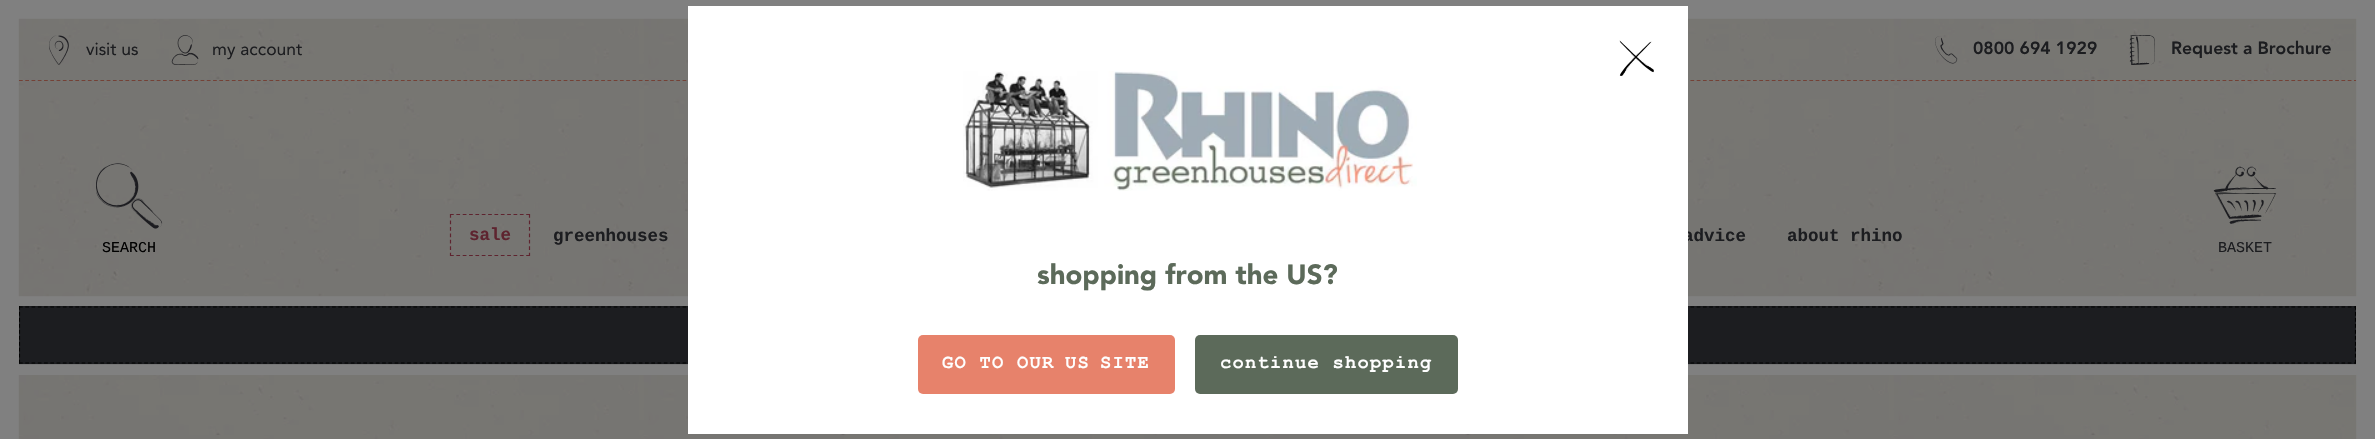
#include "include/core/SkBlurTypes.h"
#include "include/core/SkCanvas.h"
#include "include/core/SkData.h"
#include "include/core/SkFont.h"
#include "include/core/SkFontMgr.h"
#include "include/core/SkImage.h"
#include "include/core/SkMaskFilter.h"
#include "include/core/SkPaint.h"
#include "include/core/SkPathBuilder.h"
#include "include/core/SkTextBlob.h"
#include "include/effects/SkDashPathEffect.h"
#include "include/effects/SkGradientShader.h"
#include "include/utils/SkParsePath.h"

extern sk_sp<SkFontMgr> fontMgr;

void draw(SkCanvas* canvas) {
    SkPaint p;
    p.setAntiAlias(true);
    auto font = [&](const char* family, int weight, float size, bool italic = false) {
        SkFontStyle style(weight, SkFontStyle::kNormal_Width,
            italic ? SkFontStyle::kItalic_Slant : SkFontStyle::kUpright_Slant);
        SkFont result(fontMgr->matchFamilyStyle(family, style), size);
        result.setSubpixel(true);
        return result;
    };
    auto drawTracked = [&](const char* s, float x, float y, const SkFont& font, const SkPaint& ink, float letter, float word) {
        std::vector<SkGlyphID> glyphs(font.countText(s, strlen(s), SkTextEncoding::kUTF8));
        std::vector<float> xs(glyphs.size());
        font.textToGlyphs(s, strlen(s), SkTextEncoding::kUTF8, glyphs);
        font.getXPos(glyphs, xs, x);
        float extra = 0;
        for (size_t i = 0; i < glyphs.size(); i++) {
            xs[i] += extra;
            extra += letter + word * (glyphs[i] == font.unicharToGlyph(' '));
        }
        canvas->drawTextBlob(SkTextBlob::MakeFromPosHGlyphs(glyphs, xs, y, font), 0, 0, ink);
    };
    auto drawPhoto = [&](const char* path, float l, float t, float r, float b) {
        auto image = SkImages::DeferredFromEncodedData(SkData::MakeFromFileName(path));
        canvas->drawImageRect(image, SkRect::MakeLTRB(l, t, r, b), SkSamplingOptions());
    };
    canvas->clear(0xFF808080);
    drawPhoto("media/1.png", 18, 18, 2357, 297);
    p.setStyle(SkPaint::kStroke_Style);
    p.setStrokeWidth(1.2f);
    p.setColor(0xFF744136);
    p.setPathEffect(SkDashPathEffect::Make({{3.75f, 2.51f}}, 0));
    canvas->drawPath(SkPathBuilder().moveTo(19, 80.5f).lineTo(2356, 80.5f).detach(), p);
    p.setPathEffect(nullptr);
    drawPhoto("media/2.png", 49, 35, 69, 65);
    auto font1 = font("Avenir", 400, 17.5f);
    p.setStyle(SkPaint::kFill_Style);
    p.setColor(0xFF1C1D20);
    canvas->drawString("visit us", 86, 55, font1, p);
    drawPhoto("media/3.png", 171, 35, 199, 65);
    canvas->drawString("my account", 212, 55, font1, p);
    drawPhoto("media/4.png", 1935, 36, 1958, 64);
    auto font2 = font("Avenir", 900, 17.5f);
    canvas->drawString("0800 694 1929", 1973, 54, font2, p);
    drawPhoto("media/5.png", 2129, 35, 2155, 65);
    canvas->drawString("Request a Brochure", 2171, 54, font2, p);
    p.setStyle(SkPaint::kStroke_Style);
    p.setColor(0xFF5E242F);
    p.setPathEffect(SkDashPathEffect::Make({{3.75f, 2.6f}}, 0));
    canvas->drawPath(SkPathBuilder().moveTo(450, 214.5f).lineTo(530, 214.5f).detach(), p);
    p.setPathEffect(nullptr);
    p.setPathEffect(SkDashPathEffect::Make({{3.75f, 2.71f}}, 0));
    canvas->drawPath(SkPathBuilder().moveTo(529.5f, 214).lineTo(529.5f, 256).detach(), p);
    p.setPathEffect(nullptr);
    p.setPathEffect(SkDashPathEffect::Make({{3.75f, 2.6f}}, 0));
    canvas->drawPath(SkPathBuilder().moveTo(450, 255.5f).lineTo(530, 255.5f).detach(), p);
    p.setPathEffect(nullptr);
    p.setPathEffect(SkDashPathEffect::Make({{3.75f, 2.71f}}, 0));
    canvas->drawPath(SkPathBuilder().moveTo(450.5f, 214).lineTo(450.5f, 256).detach(), p);
    p.setPathEffect(nullptr);
    auto font3 = font("Liberation Mono", 700, 17.5f);
    p.setStyle(SkPaint::kFill_Style);
    canvas->drawString("sale", 469, 240, font3, p);
    p.setColor(0xFF1C1D20);
    {
        const struct { const char* s; float x, y; } items[] = {
            {"greenhouses", 553, 241},
            {"advice", 1683, 241},
            {"about rhino", 1787, 241},
        };
        for (auto [s, x, y] : items) {
            canvas->drawString(s, x, y, font3, p);
        }
    }
    drawPhoto("media/6.png", 96, 163, 163, 229);
    auto font4 = font("Liberation Mono", 400, 15);
    p.setColor(0xFF000000);
    canvas->drawString("SEARCH", 102, 252, font4, p);
    drawPhoto("media/7.png", 2213, 166, 2277, 224);
    p.setColor(0xFF1C1D20);
    canvas->drawString("BASKET", 2218, 252, font4, p);
    p.setColor(0xFF767676);
    canvas->drawRect(SkRect::MakeLTRB(19, 364, 2356, 365), p);
    p.setColor(0xFF1C1D20);
    canvas->drawRect(SkRect::MakeLTRB(19, 306, 2356, 364), p);
    p.setStyle(SkPaint::kStroke_Style);
    p.setColor(0xFF000000);
    p.setPathEffect(SkDashPathEffect::Make({{3.75f, 2.51f}}, 0));
    canvas->drawPath(SkPathBuilder().moveTo(19, 307).lineTo(2356, 307).detach(), p);
    p.setPathEffect(nullptr);
    canvas->save();
    canvas->clipRect(SkRect::MakeLTRB(19, 306, 2356, 364));
    p.setPathEffect(SkDashPathEffect::Make({{3.75f, 2.23f}}, 0));
    canvas->drawPath(SkPathBuilder().moveTo(2355.5f, 306).lineTo(2355.5f, 364).detach(), p);
    p.setPathEffect(nullptr);
    canvas->restore();
    p.setPathEffect(SkDashPathEffect::Make({{3.75f, 2.51f}}, 0));
    canvas->drawPath(SkPathBuilder().moveTo(19, 363).lineTo(2356, 363).detach(), p);
    p.setPathEffect(nullptr);
    canvas->save();
    canvas->clipRect(SkRect::MakeLTRB(19, 306, 2356, 364));
    p.setPathEffect(SkDashPathEffect::Make({{3.75f, 2.23f}}, 0));
    canvas->drawPath(SkPathBuilder().moveTo(19.5f, 306).lineTo(19.5f, 364).detach(), p);
    p.setPathEffect(nullptr);
    canvas->restore();
    drawPhoto("media/8.png", 18, 375, 2357, 439);
    p.setStyle(SkPaint::kFill_Style);
    p.setColor(0xFFFFFFFF);
    canvas->drawRect(SkRect::MakeLTRB(688, 6, 1688, 434), p);
    drawPhoto("media/9.png", 1619, 40, 1654, 76);
    drawPhoto("media/10.png", 963, 71, 1417, 191);
    auto font5 = font("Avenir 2", 900, 27.5f);
    p.setColor(0xFF5C6A5A);
    canvas->drawString("shopping from the US?", 1037, 284, font5, p);
    p.setColor(0xFFE7826B);
    canvas->drawRoundRect(SkRect::MakeLTRB(918, 335, 1175, 394), 5, 5, p);
    auto font6 = font("Courier New", 700, 18.75f);
    p.setColor(0xFFFFFFFF);
    {
        const struct { const char* s; float x, y; } items[] = {
            {"GO TO OUR", 942, 368},
            {"US", 1065, 368},
            {"SITE", 1100, 368},
        };
        for (auto [s, x, y] : items) {
            drawTracked(s, x, y, font6, p, 1.25f, 0);
        }
    }
    p.setColor(0xFF5C6A5A);
    canvas->drawRoundRect(SkRect::MakeLTRB(1195, 335, 1458, 394), 5, 5, p);
    p.setColor(0xFFFFFFFF);
    drawTracked("continue shopping", 1220, 368, font6, p, 1.25f, 0);
}
